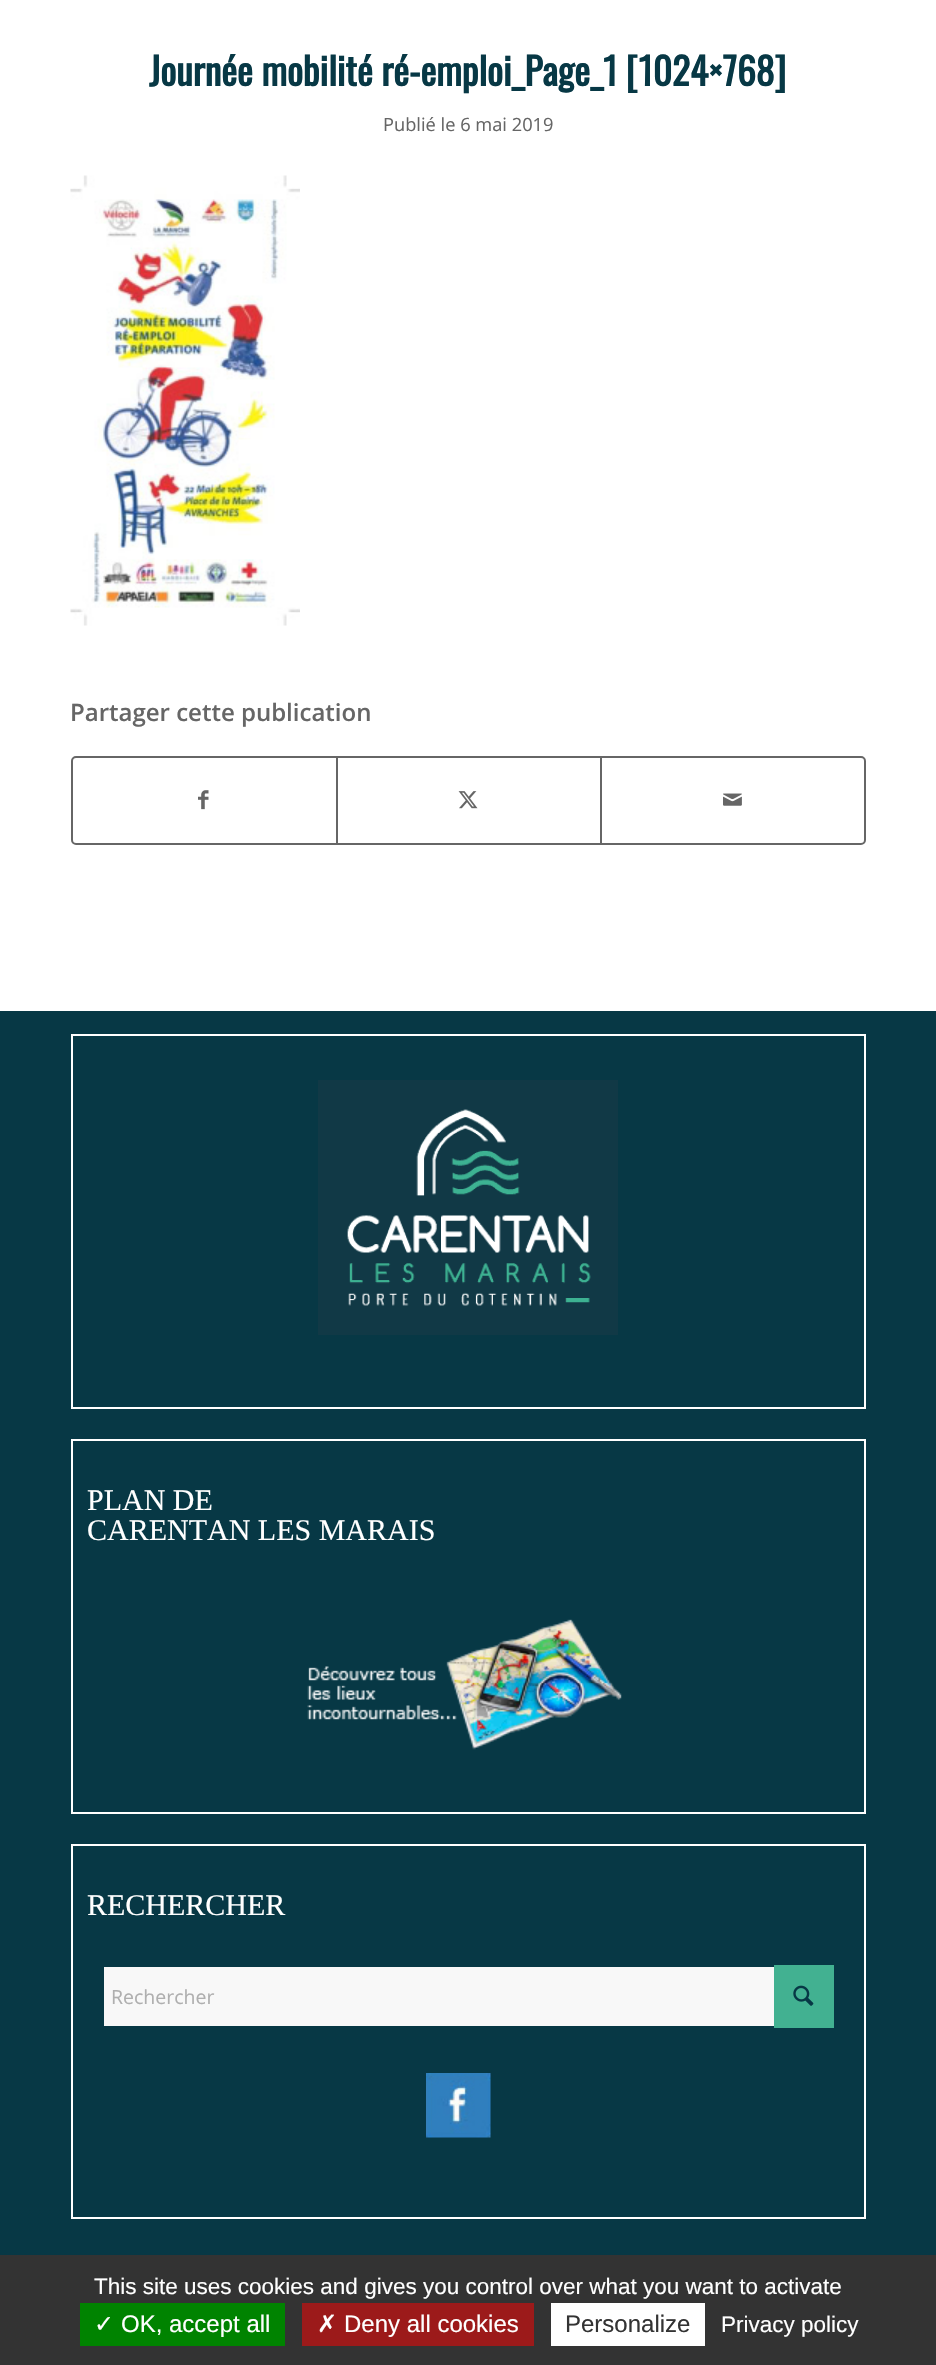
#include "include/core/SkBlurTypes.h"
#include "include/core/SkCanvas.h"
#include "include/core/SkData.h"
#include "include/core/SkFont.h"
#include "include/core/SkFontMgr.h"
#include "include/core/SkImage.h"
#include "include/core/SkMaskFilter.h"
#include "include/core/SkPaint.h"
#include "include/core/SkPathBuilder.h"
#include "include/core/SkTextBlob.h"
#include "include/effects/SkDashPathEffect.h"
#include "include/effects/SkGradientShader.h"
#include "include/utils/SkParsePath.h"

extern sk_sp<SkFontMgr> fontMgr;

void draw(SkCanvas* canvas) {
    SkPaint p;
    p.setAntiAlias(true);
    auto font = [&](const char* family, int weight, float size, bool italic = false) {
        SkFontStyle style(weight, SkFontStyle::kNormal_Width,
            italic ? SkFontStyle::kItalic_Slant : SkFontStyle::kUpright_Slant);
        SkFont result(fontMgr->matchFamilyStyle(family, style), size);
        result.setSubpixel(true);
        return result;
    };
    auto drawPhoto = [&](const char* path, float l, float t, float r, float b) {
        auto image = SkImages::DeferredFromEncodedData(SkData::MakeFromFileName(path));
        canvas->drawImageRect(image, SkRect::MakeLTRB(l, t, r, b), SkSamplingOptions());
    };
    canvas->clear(0xFF073845);
    p.setColor(0xFFFFFFFF);
    canvas->drawRect(SkRect::MakeLTRB(0, 0, 936, 1011), p);
    auto font1 = font("Oswald", 700, 37.5f);
    p.setColor(0xFF073845);
    canvas->drawString("Journée mobilité ré-emploi_Page_1 [1024×768]", 149, 86, font1, p);
    auto font2 = font("Open Sans", 400, 18.25f);
    p.setColor(0xFF666666);
    canvas->drawString("Publié le 6 mai 2019", 383, 131, font2, p);
    drawPhoto("media/1.png", 70, 175, 300, 626);
    auto font3 = font("Open Sans", 600, 24);
    canvas->drawString("Partager cette publication", 70, 721, font3, p);
    p.setStyle(SkPaint::kStroke_Style);
    p.setStrokeWidth(2);
    canvas->drawRoundRect(SkRect::MakeLTRB(72, 757, 865, 844), 4, 4, p);
    drawPhoto("media/2.png", 198, 790, 209, 810);
    p.setStyle(SkPaint::kFill_Style);
    canvas->drawRect(SkRect::MakeLTRB(336, 758, 338, 843), p);
    drawPhoto("media/3.png", 458, 791, 478, 809);
    canvas->drawRect(SkRect::MakeLTRB(600, 758, 602, 843), p);
    drawPhoto("media/4.png", 723, 793, 742, 806);
    p.setStyle(SkPaint::kStroke_Style);
    p.setColor(0xFFFFFFFF);
    canvas->drawRect(SkRect::MakeLTRB(72, 1035, 865, 1408), p);
    drawPhoto("media/5.png", 318, 1080, 618, 1335);
    canvas->drawRect(SkRect::MakeLTRB(72, 1440, 865, 1813), p);
    auto font4 = font("Liberation Serif", 400, 30);
    p.setStyle(SkPaint::kFill_Style);
    canvas->drawString("PLAN DE", 87, 1510, font4, p);
    canvas->drawString("CARENTAN LES MARAIS", 87, 1540, font4, p);
    drawPhoto("media/6.png", 307, 1619, 622, 1750);
    p.setStyle(SkPaint::kStroke_Style);
    canvas->drawRect(SkRect::MakeLTRB(72, 1845, 865, 2218), p);
    p.setStyle(SkPaint::kFill_Style);
    canvas->drawString("RECHERCHER", 87, 1915, font4, p);
    p.setColor(0xFF42B191);
    canvas->drawRect(SkRect::MakeLTRB(774, 1965, 834, 2028), p);
    p.setColor(0xFFF8F8F8);
    canvas->drawRect(SkRect::MakeLTRB(104, 1967, 774, 2026), p);
    auto font5 = font("Open Sans", 400, 19.5f);
    p.setColor(0xFFAFAFAF);
    canvas->drawString("Rechercher", 111, 2004, font5, p);
    drawPhoto("media/7.png", 793, 1985, 814, 2006);
    drawPhoto("media/8.png", 426, 2073, 491, 2138);
    p.setColor(0xFF333333);
    canvas->drawRect(SkRect::MakeLTRB(0, 2255, 936, 2365), p);
    auto font6 = font("Liberation Sans", 400, 22.5f);
    p.setColor(0xFFFFFFFF);
    canvas->drawString("This site uses cookies and gives you control over what you want to activate", 94, 2294, font6, p);
    p.setColor(0xFF008300);
    canvas->drawRect(SkRect::MakeLTRB(80, 2303, 285, 2346), p);
    auto font7 = font("DejaVu Sans", 400, 24);
    p.setColor(0xFFFFFFFF);
    canvas->drawString("✓", 94, 2332, font7, p);
    auto font8 = font("Liberation Sans", 400, 24);
    canvas->drawString("OK, accept all", 121, 2332, font8, p);
    p.setColor(0xFF9C1A1A);
    canvas->drawRect(SkRect::MakeLTRB(302, 2303, 534, 2346), p);
    p.setColor(0xFFFFFFFF);
    canvas->drawString("✗", 317, 2332, font7, p);
    canvas->drawString("Deny all cookies", 344, 2332, font8, p);
    canvas->drawRect(SkRect::MakeLTRB(551, 2303, 705, 2346), p);
    p.setColor(0xFF333333);
    canvas->drawString("Personalize", 565, 2332, font8, p);
    p.setColor(0xFFFFFFFF);
    canvas->drawString("Privacy policy", 721, 2332, font6, p);
}
